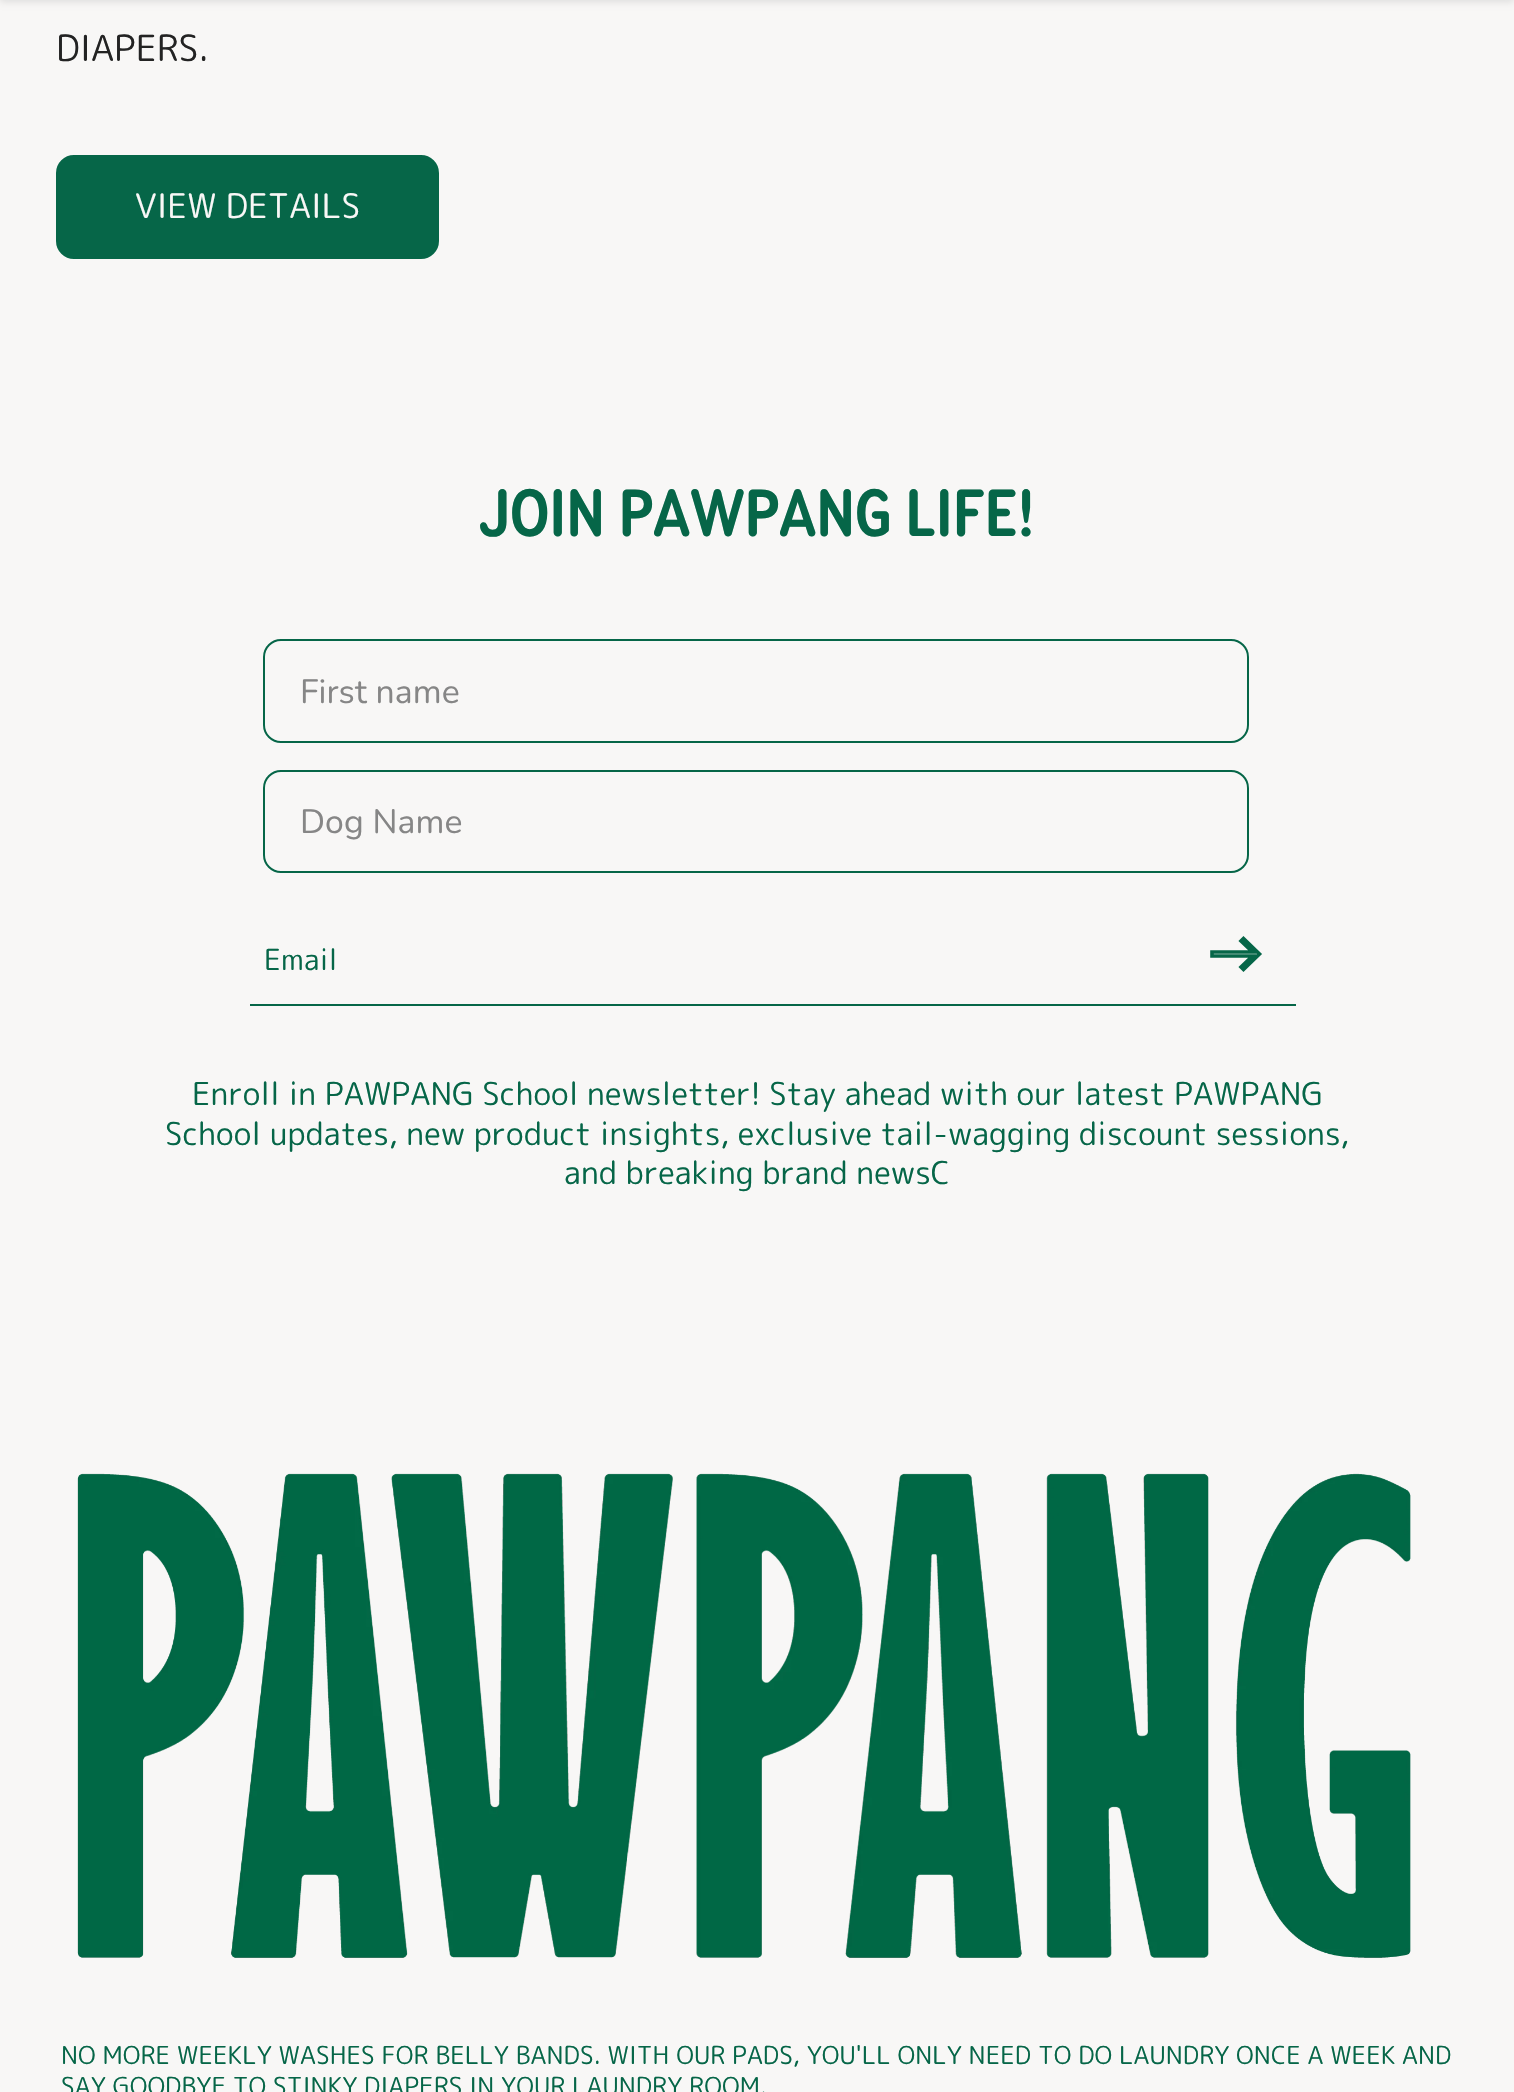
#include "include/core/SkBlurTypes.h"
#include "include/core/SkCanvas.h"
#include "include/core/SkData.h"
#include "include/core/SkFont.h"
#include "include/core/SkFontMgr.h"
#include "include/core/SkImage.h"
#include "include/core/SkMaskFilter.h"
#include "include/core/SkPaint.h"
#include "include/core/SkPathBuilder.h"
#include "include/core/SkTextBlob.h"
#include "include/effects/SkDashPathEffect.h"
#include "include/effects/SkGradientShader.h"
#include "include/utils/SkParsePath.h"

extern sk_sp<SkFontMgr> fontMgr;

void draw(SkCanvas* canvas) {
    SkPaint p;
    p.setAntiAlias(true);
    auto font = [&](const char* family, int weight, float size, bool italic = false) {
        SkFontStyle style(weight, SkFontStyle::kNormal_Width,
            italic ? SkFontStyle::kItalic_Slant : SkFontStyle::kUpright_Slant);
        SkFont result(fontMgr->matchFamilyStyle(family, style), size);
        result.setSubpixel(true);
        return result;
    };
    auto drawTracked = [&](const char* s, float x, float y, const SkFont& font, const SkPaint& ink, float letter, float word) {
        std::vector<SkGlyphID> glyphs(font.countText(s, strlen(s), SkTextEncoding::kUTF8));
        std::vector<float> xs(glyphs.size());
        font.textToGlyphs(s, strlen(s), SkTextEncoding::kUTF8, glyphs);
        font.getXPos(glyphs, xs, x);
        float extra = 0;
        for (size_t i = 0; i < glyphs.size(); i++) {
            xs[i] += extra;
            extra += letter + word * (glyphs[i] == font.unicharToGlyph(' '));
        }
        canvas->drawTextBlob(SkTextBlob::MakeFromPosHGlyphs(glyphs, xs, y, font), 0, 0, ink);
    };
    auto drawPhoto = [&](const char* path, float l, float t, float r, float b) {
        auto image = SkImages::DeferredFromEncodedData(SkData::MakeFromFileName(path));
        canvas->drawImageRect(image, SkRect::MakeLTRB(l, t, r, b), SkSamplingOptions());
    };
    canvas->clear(0xFFF8F7F6);
    p.setColor(0x1A000000);
    p.setMaskFilter(SkMaskFilter::MakeBlur(kNormal_SkBlurStyle, 3.5f));
    canvas->drawRect(SkRect::MakeLTRB(0, -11, 1514, 2), p);
    p.setMaskFilter(nullptr);
    auto font1 = font("Rounded Mplus 1c", 400, 36);
    p.setColor(0xFF232323);
    canvas->drawString("DIAPERS.", 56, 61, font1, p);
    p.setColor(0xFF066648);
    canvas->drawRoundRect(SkRect::MakeLTRB(57, 156, 438, 258), 17, 17, p);
    p.setStyle(SkPaint::kStroke_Style);
    p.setStrokeWidth(2);
    canvas->drawRoundRect(SkRect::MakeLTRB(57, 156, 438, 258), 17, 17, p);
    auto font2 = font("Rounded Mplus 1c", 400, 33.75f);
    p.setStyle(SkPaint::kFill_Style);
    p.setColor(0xFFF8F7F6);
    drawTracked("VIEW DETAILS", 135, 218, font2, p, 0.07f, 0);
    auto font3 = font("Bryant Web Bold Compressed", 700, 69.75f);
    p.setColor(0xFF066648);
    drawTracked("JOIN PAWPANG LIFE!", 479, 536, font3, p, 0.07f, 0);
    p.setStyle(SkPaint::kStroke_Style);
    canvas->drawRoundRect(SkRect::MakeLTRB(264, 640, 1248, 742), 17, 17, p);
    auto font4 = font("Nunito", 400, 33.75f);
    p.setStyle(SkPaint::kFill_Style);
    p.setColor(0xFF868686);
    drawTracked("First name", 300, 703, font4, p, 0.07f, 0);
    p.setStyle(SkPaint::kStroke_Style);
    p.setColor(0xFF066648);
    canvas->drawRoundRect(SkRect::MakeLTRB(264, 771, 1248, 872), 17, 17, p);
    p.setStyle(SkPaint::kFill_Style);
    p.setColor(0xFF868686);
    drawTracked("Dog Name", 300, 833, font4, p, 0.07f, 0);
    auto font5 = font("Rounded Mplus 1c", 400, 29);
    p.setColor(0xFF066648);
    drawTracked("Email", 264, 970, font5, p, 0.07f, 0);
    canvas->drawRect(SkRect::MakeLTRB(250, 1004, 1296, 1006), p);
    p.setStyle(SkPaint::kStroke_Style);
    p.setStrokeWidth(3.6f);
    canvas->drawPath(SkPathBuilder().moveTo(1243.5f, 938.5f).lineTo(1259.5f, 954).lineTo(1243.5f, 969.5f).lineTo(1241, 967).lineTo(1252.5f, 956).lineTo(1212, 956).lineTo(1212, 952).lineTo(1252.5f, 952).lineTo(1241, 941).close().detach(), p);
    auto font6 = font("Rounded Mplus 1c", 400, 31.5f);
    p.setStyle(SkPaint::kFill_Style);
    {
        const struct { const char* s; float x, y; } items[] = {
            {"Enroll in PAWPANG School newsletter! Stay ahead with our latest PAWPANG", 192, 1105},
            {"School updates, new product insights, exclusive tail-wagging discount sessions,", 165, 1145},
            {"and breaking brand newsC", 564, 1184},
        };
        for (auto [s, x, y] : items) {
            drawTracked(s, x, y, font6, p, 0.07f, 0);
        }
    }
    drawPhoto("media/1.png", 77, 1473, 1411, 1958);
    auto font7 = font("Rounded Mplus 1c", 400, 24.75f);
    drawTracked("NO MORE WEEKLY WASHES FOR BELLY BANDS. WITH OUR PADS, YOU'LL ONLY NEED TO DO LAUNDRY ONCE A WEEK AND", 61, 2064, font7, p, 0.07f, 0);
    drawTracked("SAY GOODBYE TO STINKY DIAPERS IN YOUR LAUNDRY ROOM.", 61, 2095, font7, p, 0.07f, 0);
}
